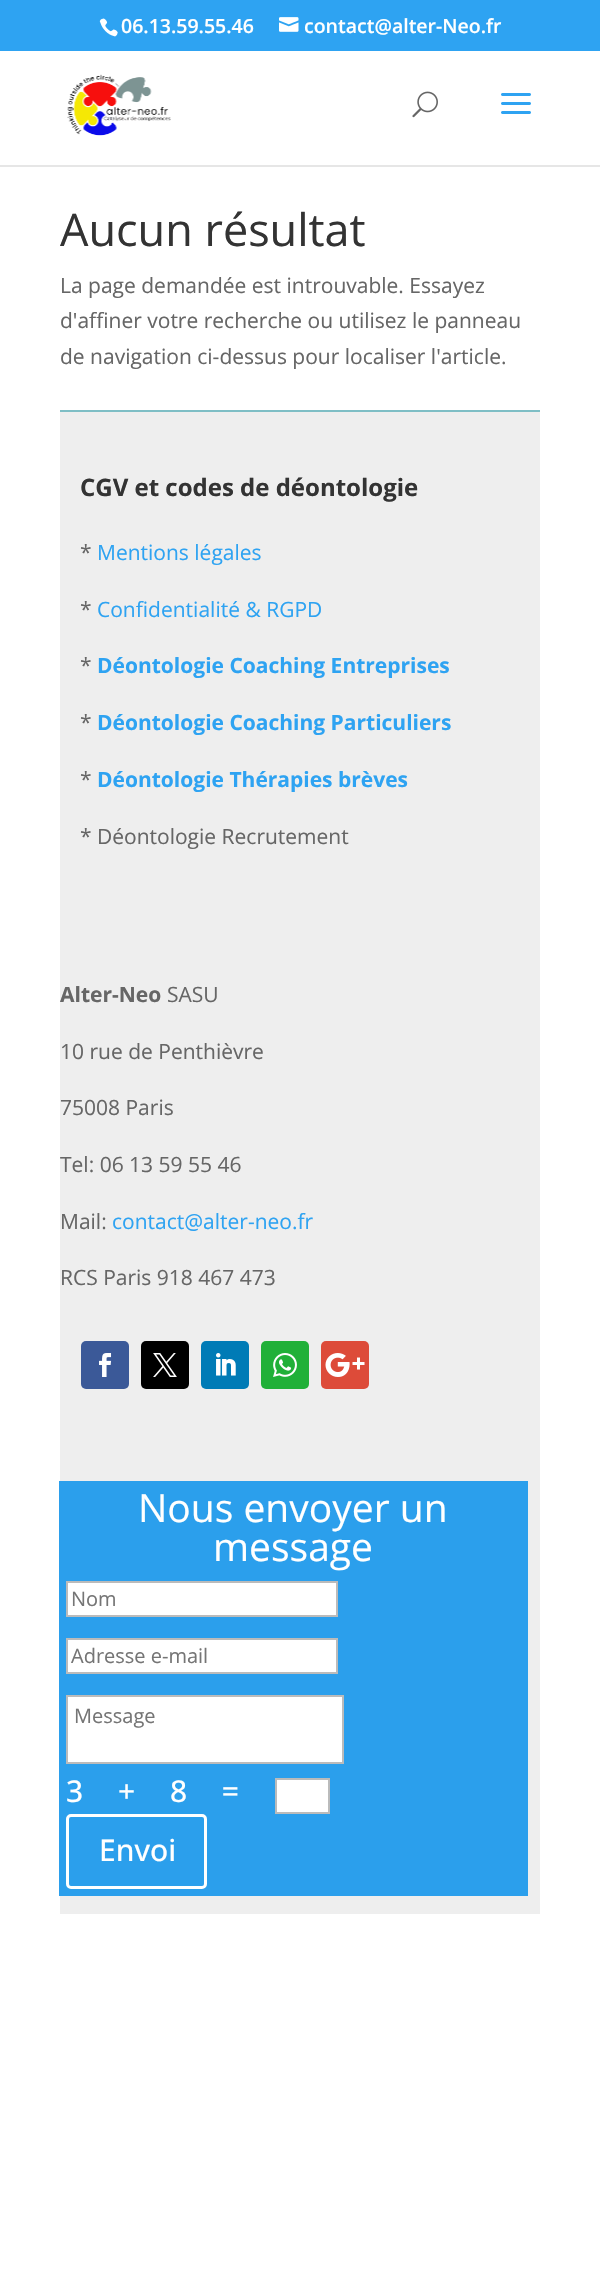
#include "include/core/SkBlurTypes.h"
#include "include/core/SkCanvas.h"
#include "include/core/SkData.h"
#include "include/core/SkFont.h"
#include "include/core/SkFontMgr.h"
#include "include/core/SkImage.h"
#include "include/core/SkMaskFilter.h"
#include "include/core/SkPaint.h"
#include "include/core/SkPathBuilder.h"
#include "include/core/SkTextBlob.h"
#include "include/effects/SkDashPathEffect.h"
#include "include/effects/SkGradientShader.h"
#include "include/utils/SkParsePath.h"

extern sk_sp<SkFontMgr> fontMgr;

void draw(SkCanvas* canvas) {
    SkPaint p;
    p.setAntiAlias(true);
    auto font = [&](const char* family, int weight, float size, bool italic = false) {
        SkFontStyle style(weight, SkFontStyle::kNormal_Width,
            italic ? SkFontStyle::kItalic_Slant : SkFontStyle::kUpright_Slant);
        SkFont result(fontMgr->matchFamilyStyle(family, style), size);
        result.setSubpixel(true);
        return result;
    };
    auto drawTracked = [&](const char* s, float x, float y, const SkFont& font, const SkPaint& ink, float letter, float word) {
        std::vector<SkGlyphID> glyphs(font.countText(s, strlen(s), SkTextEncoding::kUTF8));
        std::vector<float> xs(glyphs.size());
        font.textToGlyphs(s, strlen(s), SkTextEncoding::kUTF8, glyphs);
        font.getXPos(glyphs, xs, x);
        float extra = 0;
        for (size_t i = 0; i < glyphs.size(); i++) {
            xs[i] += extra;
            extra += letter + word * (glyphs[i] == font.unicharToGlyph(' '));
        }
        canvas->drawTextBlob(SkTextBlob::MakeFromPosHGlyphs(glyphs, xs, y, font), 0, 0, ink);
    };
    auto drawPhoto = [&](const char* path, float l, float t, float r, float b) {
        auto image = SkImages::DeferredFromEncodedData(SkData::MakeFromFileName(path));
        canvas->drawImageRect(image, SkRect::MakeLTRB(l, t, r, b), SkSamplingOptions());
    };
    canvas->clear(0xFFFFFFFF);
    p.setColor(0xFF2EA3F2);
    canvas->drawRect(SkRect::MakeLTRB(0, 0, 600, 51), p);
    drawPhoto("media/1.png", 99, 18, 118, 37);
    auto font1 = font("Open Sans", 600, 19.5f);
    p.setColor(0xFFFFFFFF);
    canvas->drawString("06.13.59.55.46", 121, 33, font1, p);
    drawPhoto("media/2.png", 279, 17, 299, 32);
    canvas->drawString("contact@alter-Neo.fr", 304, 33, font1, p);
    p.setColor(0xFFE6E6E6);
    canvas->drawRect(SkRect::MakeLTRB(0, 165, 600, 167), p);
    drawPhoto("media/3.png", 67, 74, 171, 136);
    drawPhoto("media/4.png", 412, 91, 438, 118);
    drawPhoto("media/5.png", 501, 93, 531, 114);
    auto font2 = font("Open Sans", 400, 45);
    p.setColor(0xFF333333);
    canvas->drawString("Aucun résultat", 60, 246, font2, p);
    auto font3 = font("Open Sans", 400, 21);
    p.setColor(0xFF666666);
    {
        const struct { const char* s; float x, y; } items[] = {
            {"La page demandée est introuvable. Essayez", 60, 293},
            {"d'affiner votre recherche ou utilisez le panneau", 60, 328},
            {"de navigation ci-dessus pour localiser l'article.", 60, 364},
        };
        for (auto [s, x, y] : items) {
            canvas->drawString(s, x, y, font3, p);
        }
    }
    p.setColor(0xFF7EBEC5);
    canvas->drawRect(SkRect::MakeLTRB(60, 410, 540, 412), p);
    p.setColor(0xFFEEEEEE);
    canvas->drawRect(SkRect::MakeLTRB(60, 412, 540, 1914), p);
    auto font4 = font("Open Sans", 700, 24);
    p.setColor(0xFF333333);
    canvas->drawString("CGV et codes de déontologie", 80, 496, font4, p);
    p.setColor(0xFF666666);
    canvas->drawString("*", 80, 560, font3, p);
    p.setColor(0xFF2EA3F2);
    canvas->drawString("Mentions légales", 97, 560, font3, p);
    p.setColor(0xFF666666);
    canvas->drawString("*", 80, 617, font3, p);
    p.setColor(0xFF2EA3F2);
    canvas->drawString("Confidentialité & RGPD", 97, 617, font3, p);
    p.setColor(0xFF666666);
    canvas->drawString("*", 80, 673, font3, p);
    auto font5 = font("Open Sans", 700, 21);
    p.setColor(0xFF2EA3F2);
    canvas->drawString("Déontologie Coaching Entreprises", 97, 673, font5, p);
    p.setColor(0xFF666666);
    canvas->drawString("*", 80, 730, font3, p);
    p.setColor(0xFF2EA3F2);
    canvas->drawString("Déontologie Coaching Particuliers", 97, 730, font5, p);
    p.setColor(0xFF666666);
    canvas->drawString("*", 80, 787, font3, p);
    p.setColor(0xFF2EA3F2);
    canvas->drawString("Déontologie Thérapies brèves", 97, 787, font5, p);
    p.setColor(0xFF666666);
    canvas->drawString("* Déontologie Recrutement", 80, 844, font3, p);
    canvas->drawString("Alter-Neo", 60, 1002, font5, p);
    {
        const struct { const char* s; float x, y; } items[] = {
            {"SASU", 167, 1002},
            {"10 rue de Penthièvre", 60, 1059},
            {"75008 Paris", 60, 1115},
            {"Tel: 06 13 59 55 46", 60, 1172},
            {"Mail:", 60, 1229},
        };
        for (auto [s, x, y] : items) {
            canvas->drawString(s, x, y, font3, p);
        }
    }
    p.setColor(0xFF2EA3F2);
    canvas->drawString("contact@alter-neo.fr", 112, 1229, font3, p);
    p.setColor(0xFF666666);
    canvas->drawString("RCS Paris 918 467 473", 60, 1285, font3, p);
    p.setColor(0xFF3B5998);
    canvas->drawRoundRect(SkRect::MakeLTRB(81, 1341, 129, 1389), 5, 5, p);
    drawPhoto("media/6.png", 99, 1353, 112, 1377);
    p.setColor(0xFF000000);
    canvas->drawRoundRect(SkRect::MakeLTRB(141, 1341, 189, 1389), 5, 5, p);
    drawPhoto("media/7.png", 153, 1353, 177, 1377);
    p.setColor(0xFF007BB6);
    canvas->drawRoundRect(SkRect::MakeLTRB(201, 1341, 249, 1389), 5, 5, p);
    drawPhoto("media/8.png", 216, 1353, 236, 1376);
    p.setColor(0xFF20B038);
    canvas->drawRoundRect(SkRect::MakeLTRB(261, 1341, 309, 1389), 5, 5, p);
    drawPhoto("media/9.png", 273, 1353, 297, 1377);
    p.setColor(0xFFDD4B39);
    canvas->drawRoundRect(SkRect::MakeLTRB(321, 1341, 369, 1389), 5, 5, p);
    drawPhoto("media/10.png", 325, 1353, 365, 1377);
    p.setColor(0xFF2B9FEC);
    canvas->drawRect(SkRect::MakeLTRB(59, 1481, 528, 1896), p);
    auto font6 = font("Open Sans", 400, 39);
    p.setColor(0xFFFFFFFF);
    canvas->drawString("Nous envoyer un", 138, 1522, font6, p);
    canvas->drawString("message", 213, 1561, font6, p);
    canvas->drawRect(SkRect::MakeLTRB(67, 1582, 337, 1616), p);
    p.setStyle(SkPaint::kStroke_Style);
    p.setStrokeWidth(2);
    p.setColor(0xFFBBBBBB);
    canvas->drawRect(SkRect::MakeLTRB(67, 1582, 337, 1616), p);
    auto font7 = font("Open Sans", 400, 20);
    p.setStyle(SkPaint::kFill_Style);
    p.setColor(0xFF757575);
    canvas->drawString("Nom", 71, 1606, font7, p);
    p.setColor(0xFFFFFFFF);
    canvas->drawRect(SkRect::MakeLTRB(67, 1639, 337, 1673), p);
    p.setStyle(SkPaint::kStroke_Style);
    p.setColor(0xFFBBBBBB);
    canvas->drawRect(SkRect::MakeLTRB(67, 1639, 337, 1673), p);
    p.setStyle(SkPaint::kFill_Style);
    p.setColor(0xFF757575);
    canvas->drawString("Adresse e-mail", 71, 1663, font7, p);
    p.setColor(0xFFFFFFFF);
    canvas->drawRect(SkRect::MakeLTRB(67, 1696, 343, 1763), p);
    p.setStyle(SkPaint::kStroke_Style);
    p.setColor(0xFFBBBBBB);
    canvas->drawRect(SkRect::MakeLTRB(67, 1696, 343, 1763), p);
    p.setStyle(SkPaint::kFill_Style);
    p.setColor(0xFF757575);
    canvas->drawString("Message", 74, 1723, font7, p);
    auto font8 = font("Open Sans", 500, 30);
    p.setColor(0xFFFFFFFF);
    drawTracked("3 + 8 =", 66, 1802, font8, p, 13.5f, 0);
    canvas->drawRect(SkRect::MakeLTRB(276, 1779, 329, 1813), p);
    p.setStyle(SkPaint::kStroke_Style);
    p.setColor(0xFFBBBBBB);
    canvas->drawRect(SkRect::MakeLTRB(276, 1779, 329, 1813), p);
    p.setStrokeWidth(3);
    p.setColor(0xFFFFFFFF);
    canvas->drawRoundRect(SkRect::MakeLTRB(67.5f, 1815.5f, 205.5f, 1887.5f), 3.5f, 3.5f, p);
    p.setStyle(SkPaint::kFill_Style);
    canvas->drawString("Envoi", 99, 1861, font8, p);
}
